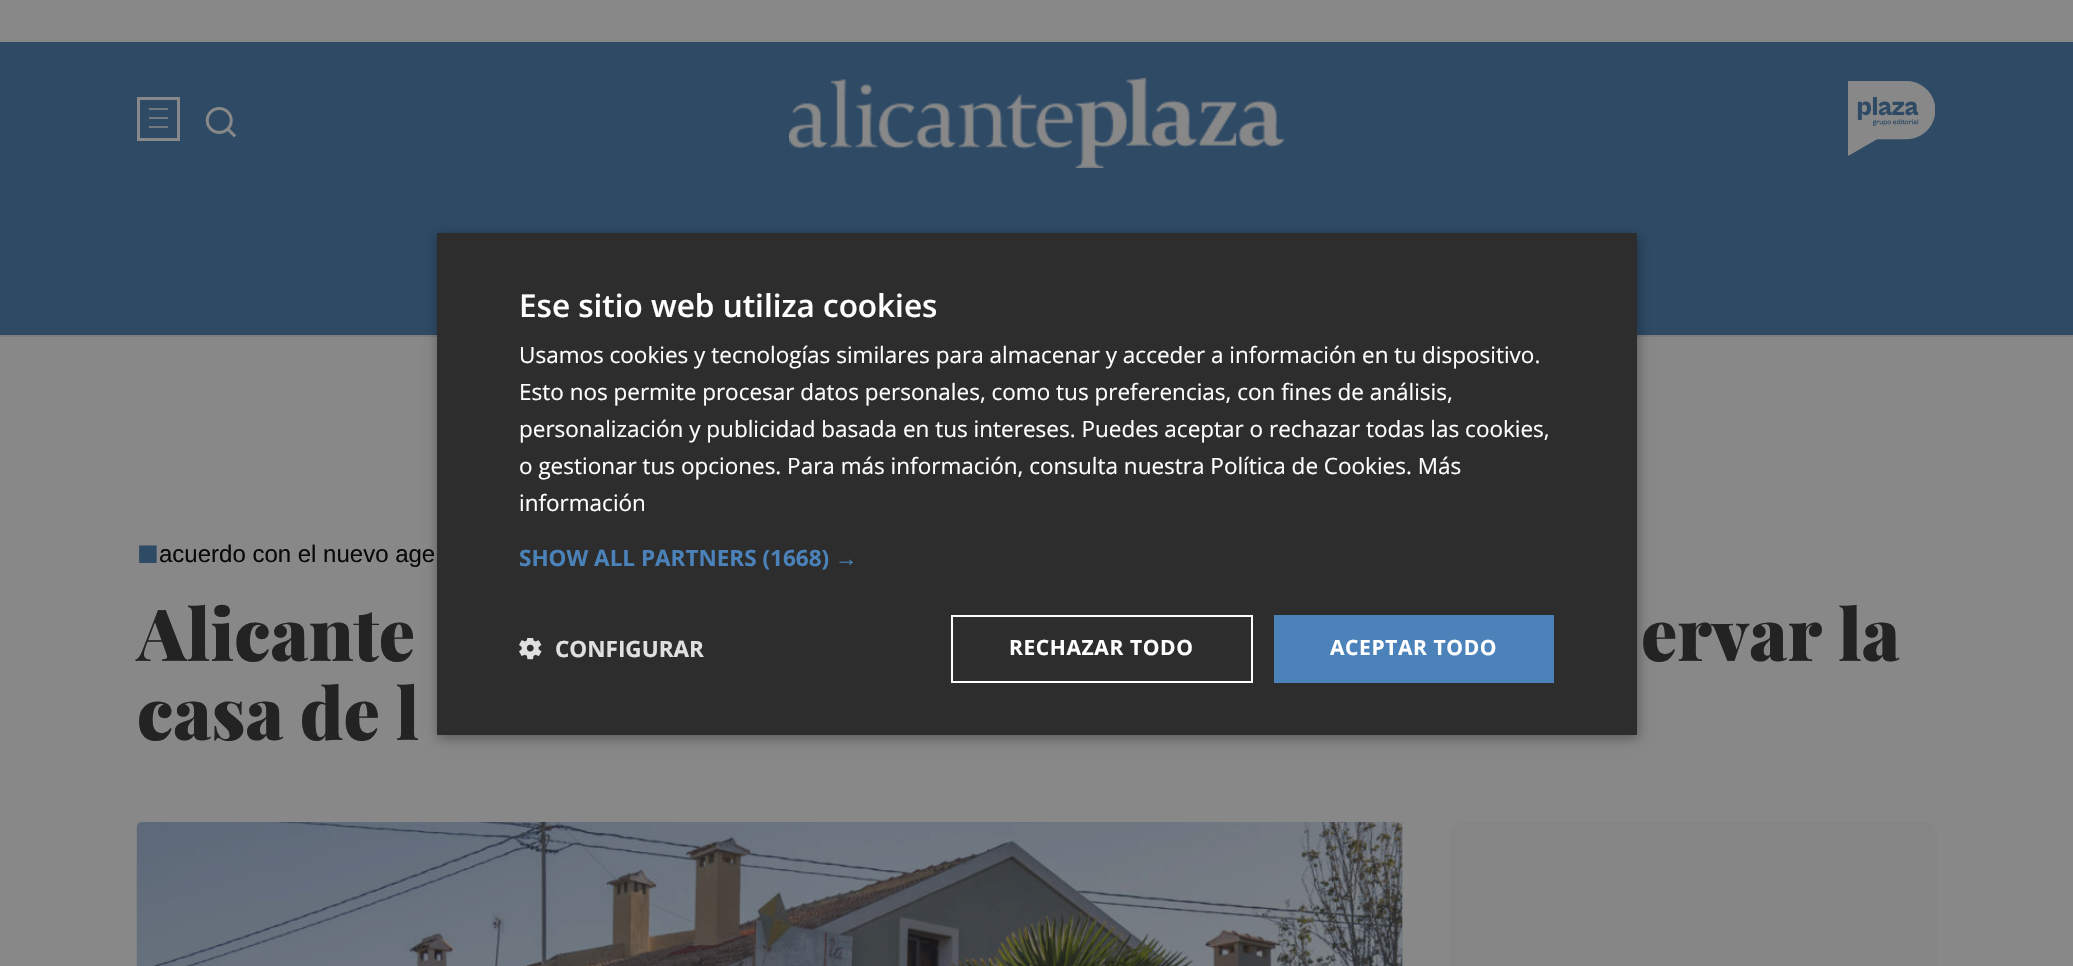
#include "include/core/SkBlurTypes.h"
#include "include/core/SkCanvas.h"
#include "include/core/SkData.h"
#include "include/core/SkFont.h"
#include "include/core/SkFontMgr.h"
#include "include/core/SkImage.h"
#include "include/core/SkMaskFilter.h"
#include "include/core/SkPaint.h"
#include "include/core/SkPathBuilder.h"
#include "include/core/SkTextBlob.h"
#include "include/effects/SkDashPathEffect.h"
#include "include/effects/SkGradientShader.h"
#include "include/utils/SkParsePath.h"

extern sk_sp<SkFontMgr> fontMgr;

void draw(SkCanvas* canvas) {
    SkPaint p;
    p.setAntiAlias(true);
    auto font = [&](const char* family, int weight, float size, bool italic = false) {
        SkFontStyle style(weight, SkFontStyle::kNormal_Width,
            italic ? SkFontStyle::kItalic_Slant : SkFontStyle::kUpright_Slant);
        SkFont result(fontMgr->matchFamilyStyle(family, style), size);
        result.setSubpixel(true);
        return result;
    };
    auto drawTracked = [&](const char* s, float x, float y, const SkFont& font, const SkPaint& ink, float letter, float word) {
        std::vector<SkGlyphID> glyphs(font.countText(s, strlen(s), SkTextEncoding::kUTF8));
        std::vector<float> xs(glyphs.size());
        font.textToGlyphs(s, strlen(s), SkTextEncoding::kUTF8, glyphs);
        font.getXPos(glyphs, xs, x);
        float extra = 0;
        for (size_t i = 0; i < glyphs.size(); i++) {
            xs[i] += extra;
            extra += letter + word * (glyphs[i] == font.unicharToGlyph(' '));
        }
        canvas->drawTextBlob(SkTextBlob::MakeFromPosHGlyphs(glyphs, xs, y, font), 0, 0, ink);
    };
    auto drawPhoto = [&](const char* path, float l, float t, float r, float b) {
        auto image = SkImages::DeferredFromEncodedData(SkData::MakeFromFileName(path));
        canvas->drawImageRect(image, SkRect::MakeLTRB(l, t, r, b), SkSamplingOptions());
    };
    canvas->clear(0xFF888888);
    p.setColor(0xFF2E4A65);
    canvas->drawRect(SkRect::MakeLTRB(0, 42, 2073, 335), p);
    p.setColor(0xFF7D7D7D);
    canvas->drawRect(SkRect::MakeLTRB(0, 335, 2073, 337), p);
    p.setStyle(SkPaint::kStroke_Style);
    p.setStrokeWidth(3);
    p.setColor(0xFF888888);
    canvas->drawRect(SkRect::MakeLTRB(138.5f, 98.5f, 178.5f, 139.5f), p);
    p.setStyle(SkPaint::kFill_Style);
    {
        const struct { float l, t, r, b; SkColor color; } items[] = {
            {149, 108, 168, 110, 0xFF727980},
            {149, 117, 168, 119, 0xFF727980},
            {149, 126, 168, 128, 0xFF727980},
        };
        for (auto [l, t, r, b, color] : items) {
            p.setColor(color);
            canvas->drawRect(SkRect::MakeLTRB(l, t, r, b), p);
        }
    }
    drawPhoto("media/1.png", 205, 106, 237, 138);
    drawPhoto("media/2.png", 789, 78, 1284, 168);
    drawPhoto("media/3.png", 1848, 81, 1935, 156);
    p.setColor(0x59000000);
    p.setMaskFilter(SkMaskFilter::MakeBlur(kNormal_SkBlurStyle, 6));
    canvas->drawRect(SkRect::MakeLTRB(438, 236, 1638, 738), p);
    p.setMaskFilter(nullptr);
    p.setColor(0xFF2D2D2D);
    canvas->drawRect(SkRect::MakeLTRB(437, 233, 1637, 735), p);
    auto font1 = font("Open Sans", 600, 31.5f);
    p.setColor(0xFFFFFFFF);
    canvas->drawString("Ese sitio web utiliza cookies", 519, 317, font1, p);
    auto font2 = font("Open Sans", 400, 22.5f);
    {
        const struct { const char* s; float x, y; } items[] = {
            {"Usamos cookies y tecnologías similares para almacenar y acceder a información en tu dispositivo.", 519, 363},
            {"Esto nos permite procesar datos personales, como tus preferencias, con fines de análisis,", 519, 400},
            {"personalización y publicidad basada en tus intereses. Puedes aceptar o rechazar todas las cookies,", 519, 437},
            {"o gestionar tus opciones. Para más información, consulta nuestra Política de Cookies. Más", 519, 474},
            {"información", 519, 511},
        };
        for (auto [s, x, y] : items) {
            canvas->drawString(s, x, y, font2, p);
        }
    }
    auto font3 = font("Open Sans", 700, 22.5f);
    p.setColor(0xFF4A82B9);
    canvas->drawString("SHOW ALL PARTNERS (1668)", 519, 566, font3, p);
    auto font4 = font("Liberation Sans", 700, 22.5f);
    canvas->drawString("→", 835, 566, font4, p);
    drawPhoto("media/4.png", 519, 638, 542, 660);
    p.setColor(0xFFE0E0E0);
    canvas->drawString("CONFIGURAR", 555, 657, font3, p);
    p.setStyle(SkPaint::kStroke_Style);
    p.setStrokeWidth(2);
    p.setColor(0xFFFFFFFF);
    canvas->drawRect(SkRect::MakeLTRB(952, 616, 1252, 682), p);
    auto font5 = font("Open Sans", 700, 21);
    p.setStyle(SkPaint::kFill_Style);
    drawTracked("RECHAZAR TODO", 1009, 655, font5, p, 0.6f, 0);
    p.setColor(0xFF4A82B9);
    canvas->drawRect(SkRect::MakeLTRB(1274, 615, 1554, 683), p);
    p.setColor(0xFFFFFFFF);
    drawTracked("ACEPTAR TODO", 1330, 655, font5, p, 0.6f, 0);
    auto font6 = font("Liberation Sans", 400, 36);
    p.setColor(0xFF2E4A65);
    canvas->drawString("■", 137, 565, font6, p);
    auto font7 = font("Liberation Sans", 400, 24);
    p.setColor(0xFF090909);
    canvas->drawString("acuerdo con el nuevo age", 159, 562, font7, p);
    auto font8 = font("Playfair Display", 900, 72);
    p.setColor(0xFF232323);
    {
        const struct { const char* s; float x, y; } items[] = {
            {"Alicante", 137, 661},
            {"ervar la", 1641, 661},
            {"casa de l", 137, 740},
        };
        for (auto [s, x, y] : items) {
            canvas->drawString(s, x, y, font8, p);
        }
    }
    p.setColor(0xFF818181);
    canvas->drawRect(SkRect::MakeLTRB(137, 822, 1403, 966), p);
    drawPhoto("media/5.png", 136, 822, 1403, 966);
    p.setColor(0xFF868585);
    canvas->drawRoundRect(SkRect::MakeLTRB(1451, 822, 1937, 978), 12, 12, p);
}
